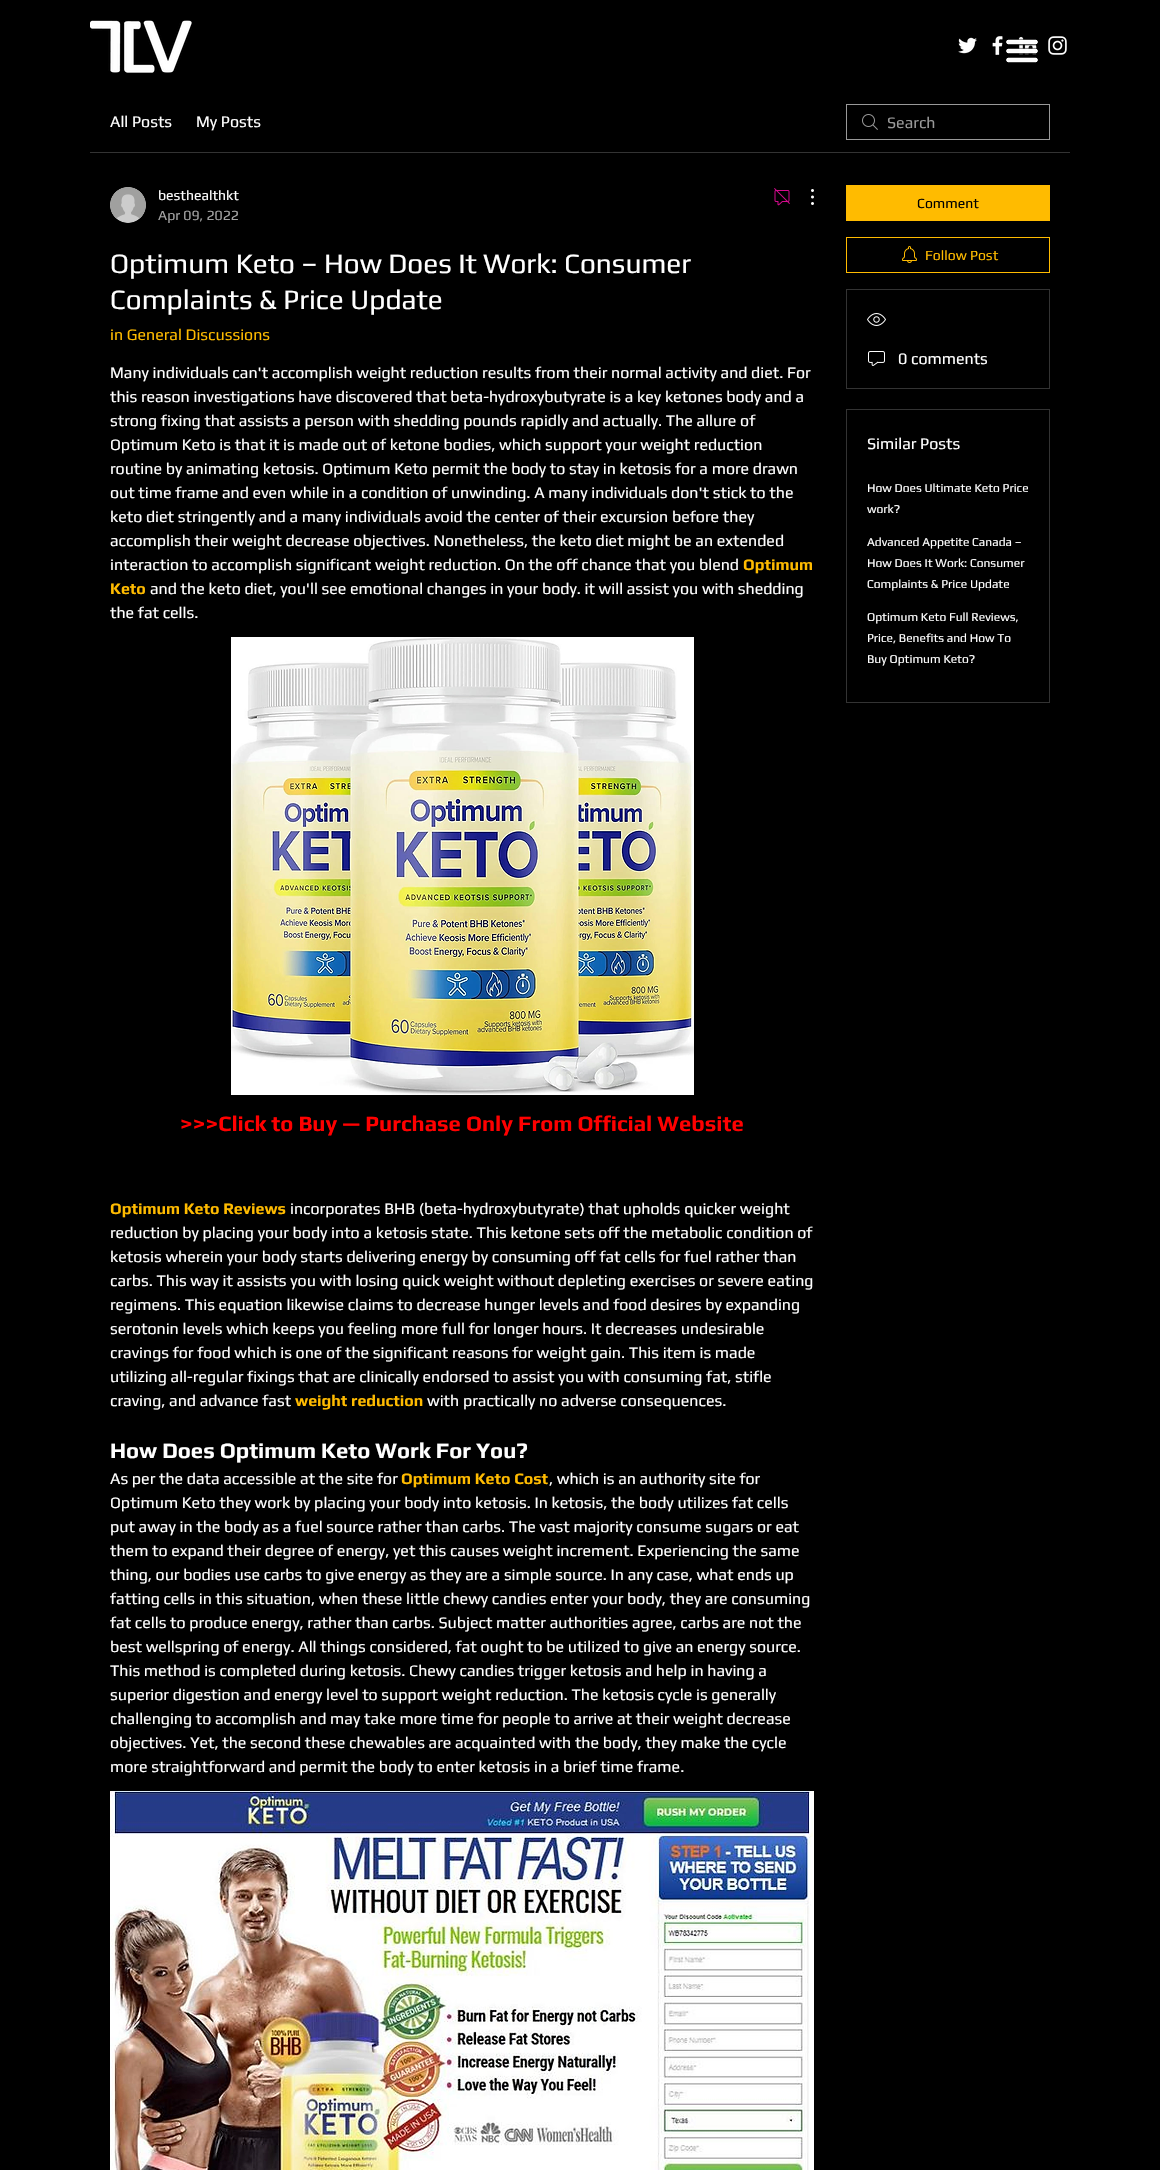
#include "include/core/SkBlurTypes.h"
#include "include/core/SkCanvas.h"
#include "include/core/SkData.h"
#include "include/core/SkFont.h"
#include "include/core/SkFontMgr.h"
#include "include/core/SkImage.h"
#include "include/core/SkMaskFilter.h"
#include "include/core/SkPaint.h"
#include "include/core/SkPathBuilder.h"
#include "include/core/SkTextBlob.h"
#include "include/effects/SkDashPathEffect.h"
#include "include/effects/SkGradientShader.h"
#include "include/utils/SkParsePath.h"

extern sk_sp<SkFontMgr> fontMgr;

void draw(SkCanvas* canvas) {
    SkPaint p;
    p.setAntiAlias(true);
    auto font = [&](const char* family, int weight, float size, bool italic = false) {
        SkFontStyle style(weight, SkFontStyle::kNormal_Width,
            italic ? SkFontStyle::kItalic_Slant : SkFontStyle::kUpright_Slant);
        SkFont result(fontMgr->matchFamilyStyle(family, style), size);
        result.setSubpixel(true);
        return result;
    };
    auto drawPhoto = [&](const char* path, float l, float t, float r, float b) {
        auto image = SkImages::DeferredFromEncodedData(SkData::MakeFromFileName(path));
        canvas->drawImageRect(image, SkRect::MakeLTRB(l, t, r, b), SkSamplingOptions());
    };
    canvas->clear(0xFF000000);
    drawPhoto("media/1.png", 90, 20, 192, 73);
    drawPhoto("media/2.png", 958, 37, 977, 54);
    drawPhoto("media/3.png", 992, 36, 1003, 55);
    drawPhoto("media/4.png", 1018, 36, 1037, 55);
    drawPhoto("media/5.png", 1048, 36, 1067, 55);
    drawPhoto("media/6.png", 1006, 38, 1038, 63);
    p.setColor(0xFF333333);
    canvas->drawRect(SkRect::MakeLTRB(90, 152, 1070, 153), p);
    auto font1 = font("Play", 400, 16);
    p.setColor(0xFFFFFFFF);
    canvas->drawString("All Posts", 110, 127, font1, p);
    canvas->drawString("My Posts", 196, 127, font1, p);
    drawPhoto("media/7.png", 862, 114, 878, 130);
    p.setStyle(SkPaint::kStroke_Style);
    p.setStrokeWidth(1);
    p.setColor(0xFF999999);
    canvas->drawRect(SkRect::MakeLTRB(846.5f, 104.5f, 1049.5f, 139.5f), p);
    p.setStyle(SkPaint::kFill_Style);
    canvas->drawString("Search", 887, 128, font1, p);
    drawPhoto("media/8.png", 110, 187, 146, 223);
    auto font2 = font("Play", 400, 14);
    p.setColor(0xFFFFFFFF);
    canvas->drawString("besthealthkt", 158, 200, font2, p);
    p.setColor(0xFFA3A3A3);
    canvas->drawString("Apr 09, 2022", 158, 220, font2, p);
    drawPhoto("media/9.png", 774, 188, 790, 206);
    drawPhoto("media/10.png", 811, 189, 814, 205);
    auto font3 = font("Play", 400, 28);
    p.setColor(0xFFFFFFFF);
    canvas->drawString("Optimum Keto – How Does It Work: Consumer", 110, 273, font3, p);
    canvas->drawString("Complaints & Price Update", 110, 309, font3, p);
    p.setColor(0xFFFFBB00);
    canvas->drawString("in General Discussions", 110, 340, font1, p);
    p.setColor(0xFFFFFFFF);
    {
        const struct { const char* s; float x, y; } items[] = {
            {"Many individuals can't accomplish weight reduction results from their normal activity and diet. For", 110, 378},
            {"this reason investigations have discovered that beta-hydroxybutyrate is a key ketones body and a", 110, 402},
            {"strong fixing that assists a person with shedding pounds rapidly and actually. The allure of", 110, 426},
            {"Optimum Keto is that it is made out of ketone bodies, which support your weight reduction", 110, 450},
            {"routine by animating ketosis. Optimum Keto permit the body to stay in ketosis for a more drawn", 110, 474},
            {"out time frame and even while in a condition of unwinding. A many individuals don't stick to the", 110, 498},
            {"keto diet stringently and a many individuals avoid the center of their excursion before they", 110, 522},
            {"accomplish their weight decrease objectives. Nonetheless, the keto diet might be an extended", 110, 546},
            {"interaction to accomplish significant weight reduction. On the off chance that you blend", 110, 570},
        };
        for (auto [s, x, y] : items) {
            canvas->drawString(s, x, y, font1, p);
        }
    }
    auto font4 = font("Play", 700, 16);
    p.setColor(0xFFFFBB00);
    canvas->drawString("Optimum", 743, 570, font4, p);
    canvas->drawString("Keto", 110, 594, font4, p);
    p.setColor(0xFFFFFFFF);
    canvas->drawString("and the keto diet, you'll see emotional changes in your body. it will assist you with shedding", 150, 594, font1, p);
    canvas->drawString("the fat cells.", 110, 618, font1, p);
    drawPhoto("media/11.png", 231, 637, 694, 1095);
    auto font5 = font("Play", 700, 22);
    p.setColor(0xFFFF0000);
    canvas->drawString(">>>Click to Buy — Purchase Only From Official Website", 180, 1131, font5, p);
    p.setColor(0xFFFFBB00);
    canvas->drawString("Optimum Keto Reviews", 110, 1214, font4, p);
    p.setColor(0xFFFFFFFF);
    {
        const struct { const char* s; float x, y; } items[] = {
            {"incorporates BHB (beta-hydroxybutyrate) that upholds quicker weight", 290, 1214},
            {"reduction by placing your body into a ketosis state. This ketone sets off the metabolic condition of", 110, 1238},
            {"ketosis wherein your body starts delivering energy by consuming off fat cells for fuel rather than", 110, 1262},
            {"carbs. This way it assists you with losing quick weight without depleting exercises or severe eating", 110, 1286},
            {"regimens. This equation likewise claims to decrease hunger levels and food desires by expanding", 110, 1310},
            {"serotonin levels which keeps you feeling more full for longer hours. It decreases undesirable", 110, 1334},
            {"cravings for food which is one of the significant reasons for weight gain. This item is made", 110, 1358},
            {"utilizing all-regular fixings that are clinically endorsed to assist you with consuming fat, stifle", 110, 1382},
            {"craving, and advance fast", 110, 1406},
        };
        for (auto [s, x, y] : items) {
            canvas->drawString(s, x, y, font1, p);
        }
    }
    p.setColor(0xFFFFBB00);
    canvas->drawString("weight reduction", 295, 1406, font4, p);
    p.setColor(0xFFFFFFFF);
    canvas->drawString("with practically no adverse consequences.", 427, 1406, font1, p);
    canvas->drawString("How Does Optimum Keto Work For You?", 110, 1458, font5, p);
    canvas->drawString("As per the data accessible at the site for", 110, 1484, font1, p);
    p.setColor(0xFFFFBB00);
    canvas->drawString("Optimum Keto Cost", 401, 1484, font4, p);
    p.setColor(0xFFFFFFFF);
    {
        const struct { const char* s; float x, y; } items[] = {
            {", which is an authority site for", 549, 1484},
            {"Optimum Keto they work by placing your body into ketosis. In ketosis, the body utilizes fat cells", 110, 1508},
            {"put away in the body as a fuel source rather than carbs. The vast majority consume sugars or eat", 110, 1532},
            {"them to expand their degree of energy, yet this causes weight increment. Experiencing the same", 110, 1556},
            {"thing, our bodies use carbs to give energy as they are a simple source. In any case, what ends up", 110, 1580},
            {"fatting cells in this situation, when these little chewy candies enter your body, they are consuming", 110, 1604},
            {"fat cells to produce energy, rather than carbs. Subject matter authorities agree, carbs are not the", 110, 1628},
            {"best wellspring of energy. All things considered, fat ought to be utilized to give an energy source.", 110, 1652},
            {"This method is completed during ketosis. Chewy candies trigger ketosis and help in having a", 110, 1676},
            {"superior digestion and energy level to support weight reduction. The ketosis cycle is generally", 110, 1700},
            {"challenging to accomplish and may take more time for people to arrive at their weight decrease", 110, 1724},
            {"objectives. Yet, the second these chewables are acquainted with the body, they make the cycle", 110, 1748},
            {"more straightforward and permit the body to enter ketosis in a brief time frame.", 110, 1772},
        };
        for (auto [s, x, y] : items) {
            canvas->drawString(s, x, y, font1, p);
        }
    }
    drawPhoto("media/12.png", 110, 1791, 814, 2170);
    p.setColor(0xFFFFBB00);
    canvas->drawRect(SkRect::MakeLTRB(846, 185, 1050, 221), p);
    p.setColor(0xFF000000);
    canvas->drawString("Comment", 917, 208, font2, p);
    p.setStyle(SkPaint::kStroke_Style);
    p.setColor(0xFFFFBB00);
    canvas->drawRect(SkRect::MakeLTRB(846.5f, 237.5f, 1049.5f, 272.5f), p);
    drawPhoto("media/13.png", 902, 246, 917, 263);
    p.setStyle(SkPaint::kFill_Style);
    canvas->drawString("Follow Post", 925, 260, font2, p);
    p.setStyle(SkPaint::kStroke_Style);
    p.setColor(0xFF333333);
    canvas->drawRect(SkRect::MakeLTRB(846.5f, 289.5f, 1049.5f, 388.5f), p);
    drawPhoto("media/14.png", 867, 313, 886, 326);
    drawPhoto("media/15.png", 868, 351, 885, 366);
    p.setStyle(SkPaint::kFill_Style);
    p.setColor(0xFFFFFFFF);
    canvas->drawString("0 comments", 898, 364, font1, p);
    p.setStyle(SkPaint::kStroke_Style);
    p.setColor(0xFF333333);
    canvas->drawRect(SkRect::MakeLTRB(846.5f, 409.5f, 1049.5f, 702.5f), p);
    p.setStyle(SkPaint::kFill_Style);
    p.setColor(0xFFFFFFFF);
    canvas->drawString("Similar Posts", 867, 449, font1, p);
    auto font6 = font("Play", 400, 12);
    {
        const struct { const char* s; float x, y; } items[] = {
            {"How Does Ultimate Keto Price", 867, 492},
            {"work?", 867, 513},
            {"Advanced Appetite Canada –", 867, 546},
            {"How Does It Work: Consumer", 867, 567},
            {"Complaints & Price Update", 867, 588},
            {"Optimum Keto Full Reviews,", 867, 621},
            {"Price, Benefits and How To", 867, 642},
            {"Buy Optimum Keto?", 867, 663},
        };
        for (auto [s, x, y] : items) {
            canvas->drawString(s, x, y, font6, p);
        }
    }
}
